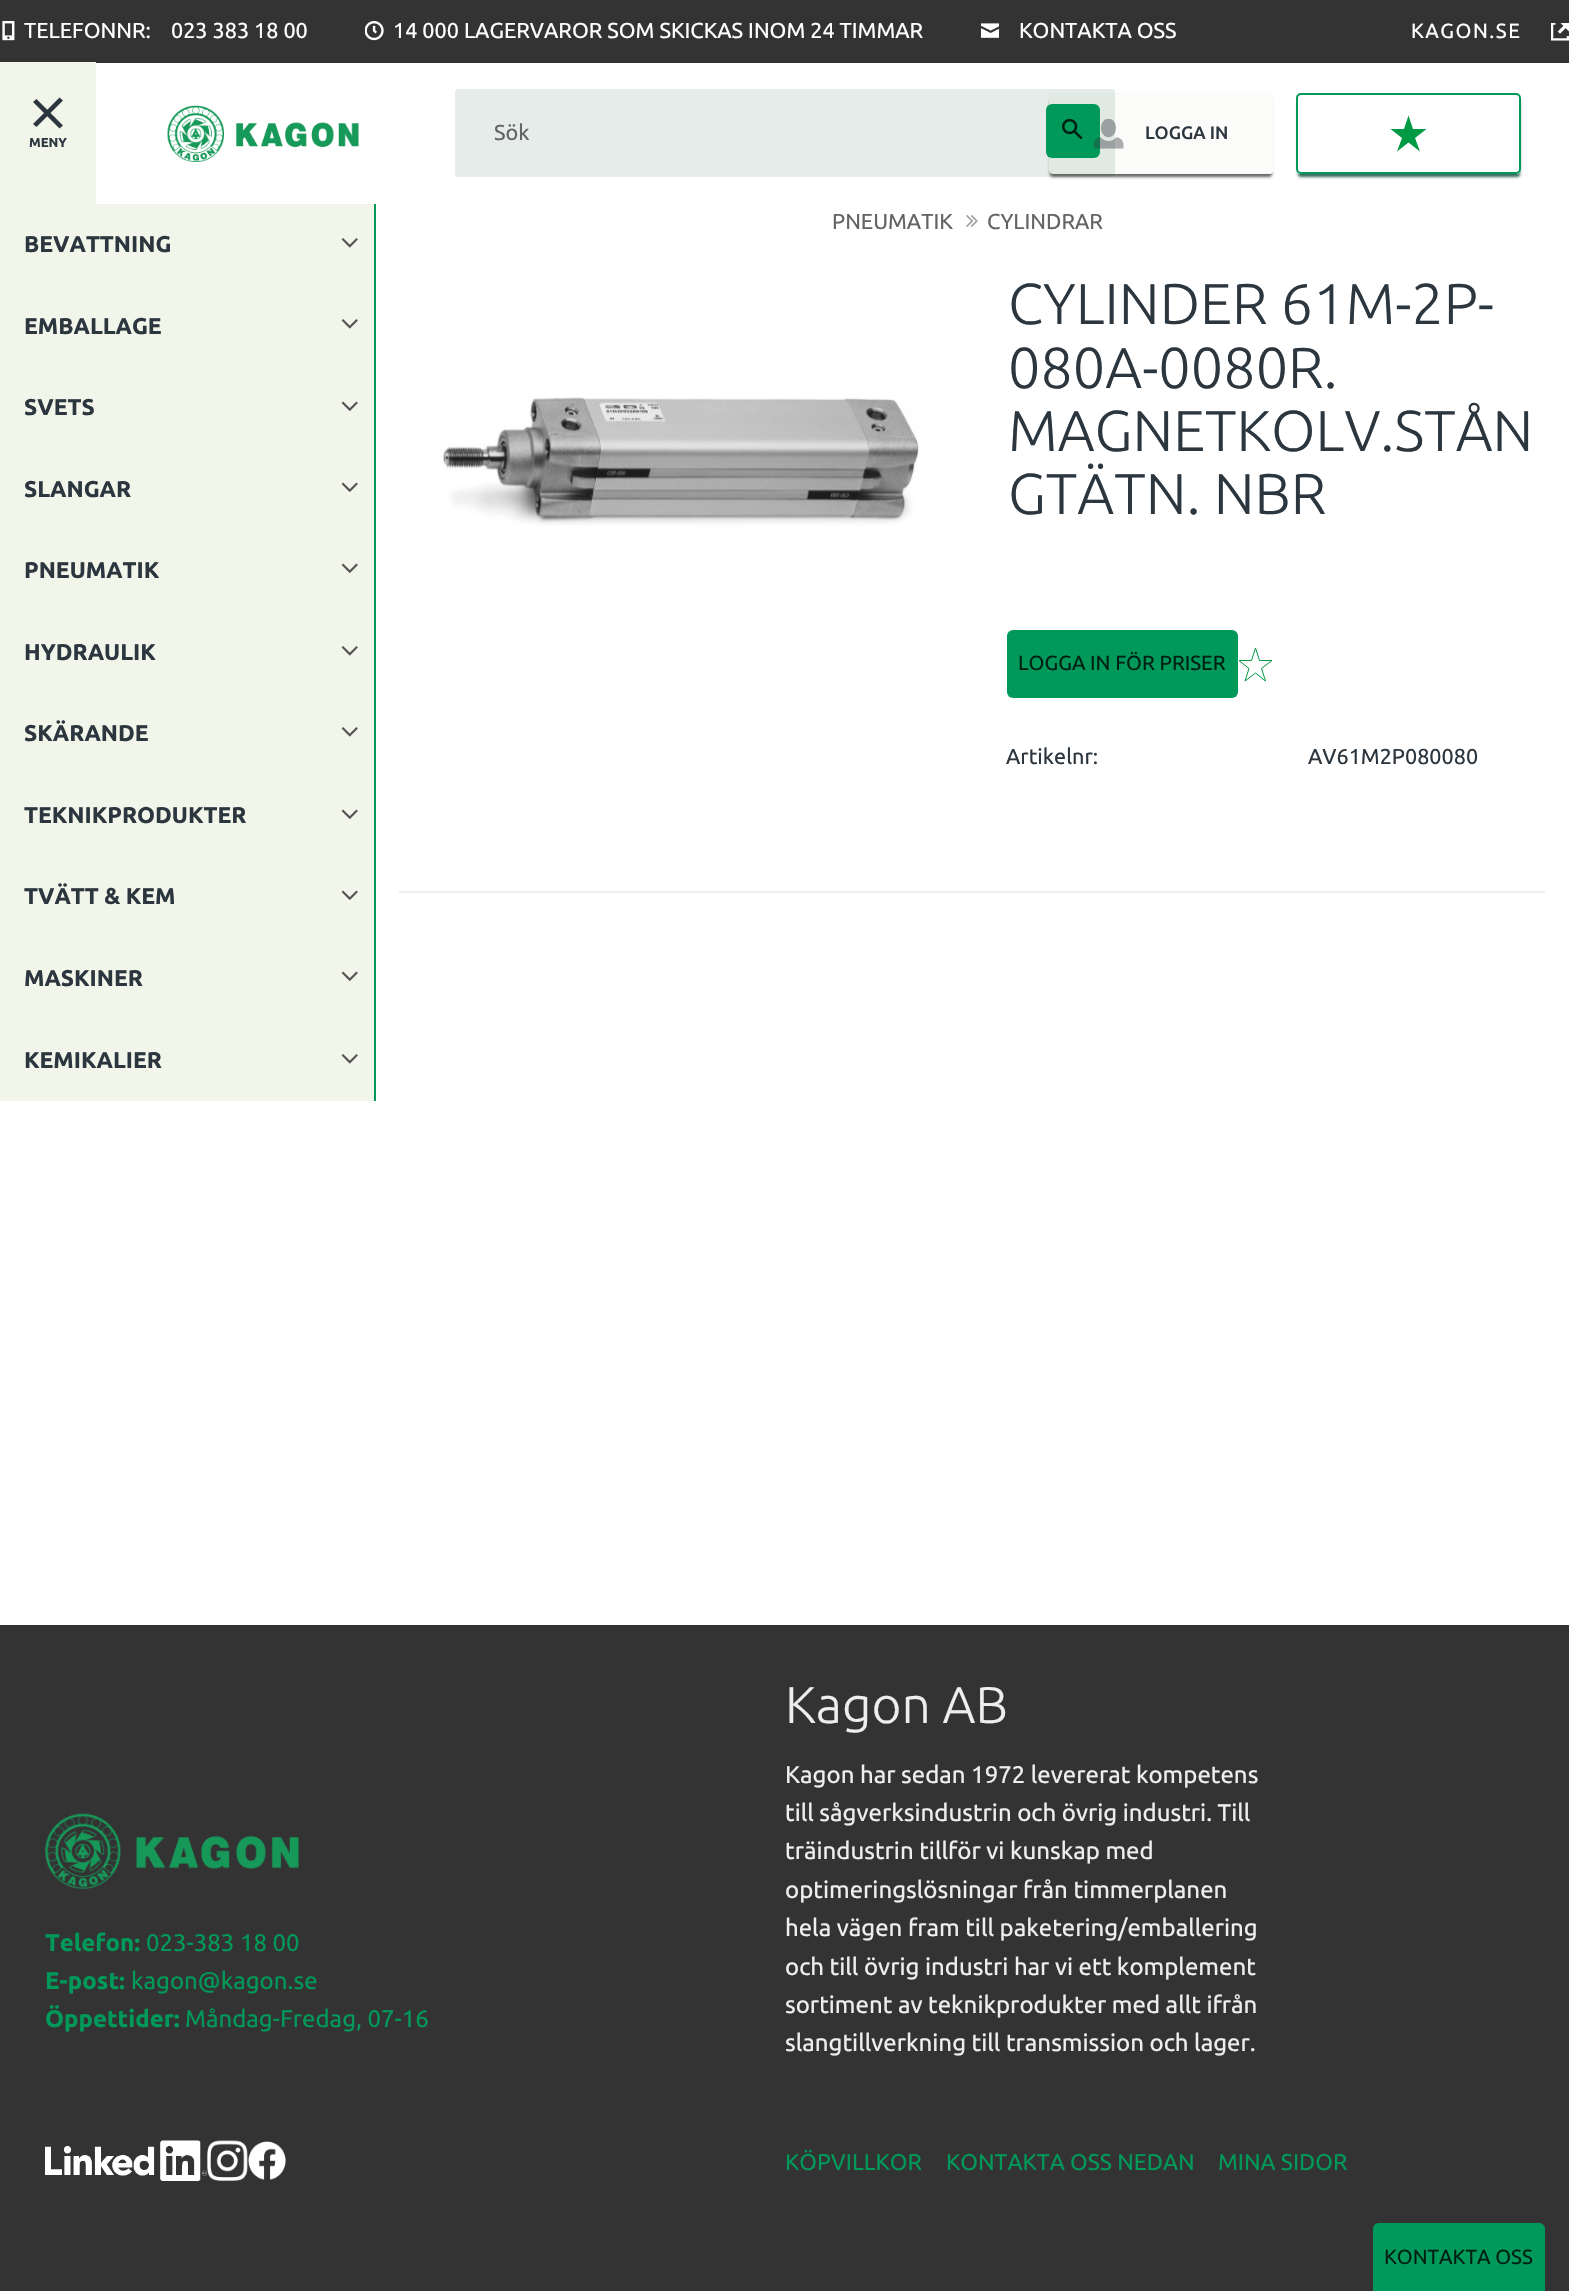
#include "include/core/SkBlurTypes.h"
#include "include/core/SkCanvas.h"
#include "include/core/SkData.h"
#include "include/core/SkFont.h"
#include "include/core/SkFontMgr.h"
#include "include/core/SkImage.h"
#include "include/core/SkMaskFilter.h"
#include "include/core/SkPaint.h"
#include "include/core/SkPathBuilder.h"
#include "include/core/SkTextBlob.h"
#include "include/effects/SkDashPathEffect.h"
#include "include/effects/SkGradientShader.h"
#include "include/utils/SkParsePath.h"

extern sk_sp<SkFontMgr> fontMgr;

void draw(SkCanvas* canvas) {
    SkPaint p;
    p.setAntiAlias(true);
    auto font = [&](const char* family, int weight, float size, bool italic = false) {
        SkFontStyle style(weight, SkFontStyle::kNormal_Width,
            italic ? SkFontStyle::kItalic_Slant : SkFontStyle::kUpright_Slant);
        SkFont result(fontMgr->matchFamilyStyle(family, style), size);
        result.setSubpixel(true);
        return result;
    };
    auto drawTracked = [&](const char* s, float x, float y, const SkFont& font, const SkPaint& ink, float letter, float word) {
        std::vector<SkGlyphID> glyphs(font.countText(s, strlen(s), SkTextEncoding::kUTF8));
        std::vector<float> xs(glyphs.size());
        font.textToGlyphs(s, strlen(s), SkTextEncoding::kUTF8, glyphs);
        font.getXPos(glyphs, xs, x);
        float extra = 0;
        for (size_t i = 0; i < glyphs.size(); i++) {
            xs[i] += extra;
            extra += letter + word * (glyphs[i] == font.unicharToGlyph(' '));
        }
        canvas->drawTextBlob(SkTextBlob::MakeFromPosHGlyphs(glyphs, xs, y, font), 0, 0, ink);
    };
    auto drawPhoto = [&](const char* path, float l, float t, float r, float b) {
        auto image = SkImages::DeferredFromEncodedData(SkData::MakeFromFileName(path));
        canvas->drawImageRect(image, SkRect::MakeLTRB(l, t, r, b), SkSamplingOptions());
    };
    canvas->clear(0xFFFFFFFF);
    p.setColor(0xFF333333);
    canvas->drawRect(SkRect::MakeLTRB(0, 0, 1569, 63), p);
    drawPhoto("media/1.png", 2, 21, 15, 41);
    auto font1 = font("Ubuntu", 400, 21.6f);
    p.setColor(0xFFFFFFFF);
    canvas->drawString("TELEFONNR:", 24, 38, font1, p);
    canvas->drawString("023 383 18 00", 171, 38, font1, p);
    drawPhoto("media/2.png", 365, 21, 384, 41);
    canvas->drawString("14 000 LAGERVAROR SOM SKICKAS INOM 24 TIMMAR", 393, 38, font1, p);
    drawPhoto("media/3.png", 981, 23, 999, 38);
    canvas->drawString("KONTAKTA OSS", 1019, 38, font1, p);
    auto font2 = font("Ubuntu", 400, 20.4f);
    drawTracked("KAGON.SE", 1411, 38, font2, p, 1.5f, 0);
    drawPhoto("media/4.png", 1551, 23, 1569, 41);
    drawPhoto("media/5.png", 167, 105, 359, 162);
    canvas->save();
    canvas->clipPath(SkPathBuilder(SkPathFillType::kEvenOdd).moveTo(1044, 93).lineTo(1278, 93).lineTo(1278, 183).lineTo(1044, 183).close().moveTo(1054, 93).lineTo(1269, 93).cubicTo(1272, 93, 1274, 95, 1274, 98).lineTo(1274, 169).cubicTo(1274, 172, 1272, 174, 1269, 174).lineTo(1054, 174).cubicTo(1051, 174, 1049, 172, 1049, 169).lineTo(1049, 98).cubicTo(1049, 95, 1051, 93, 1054, 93).close().detach(), true);
    p.setColor(0xE6555555);
    p.setMaskFilter(SkMaskFilter::MakeBlur(kNormal_SkBlurStyle, 1.5f));
    canvas->drawRoundRect(SkRect::MakeLTRB(1050, 99, 1272, 177), 3, 3, p);
    p.setMaskFilter(nullptr);
    canvas->restore();
    p.setColor(0x4DF2F5EA);
    canvas->drawRoundRect(SkRect::MakeLTRB(1049, 93, 1274, 174), 5, 5, p);
    p.setColor(0x1A00422A);
    canvas->drawRoundRect(SkRect::MakeLTRB(455, 89, 1115, 177), 3, 3, p);
    p.setColor(0xFF646464);
    canvas->drawString("Sök", 494, 140, font1, p);
    p.setColor(0xFF009959);
    canvas->drawRoundRect(SkRect::MakeLTRB(1046, 104, 1100, 158), 6, 6, p);
    drawPhoto("media/6.png", 1062, 118, 1083, 140);
    drawPhoto("media/7.png", 1094, 119, 1124, 149);
    auto font3 = font("Ubuntu", 500, 18);
    p.setColor(0xFF2C363F);
    canvas->drawString("LOGGA IN", 1145, 139, font3, p);
    canvas->save();
    canvas->clipPath(SkPathBuilder(SkPathFillType::kEvenOdd).moveTo(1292, 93).lineTo(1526, 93).lineTo(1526, 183).lineTo(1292, 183).close().moveTo(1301, 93).lineTo(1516, 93).cubicTo(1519, 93, 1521, 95, 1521, 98).lineTo(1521, 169).cubicTo(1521, 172, 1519, 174, 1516, 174).lineTo(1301, 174).cubicTo(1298, 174, 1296, 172, 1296, 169).lineTo(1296, 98).cubicTo(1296, 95, 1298, 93, 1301, 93).close().detach(), true);
    p.setColor(0xCC00422A);
    p.setMaskFilter(SkMaskFilter::MakeBlur(kNormal_SkBlurStyle, 1.5f));
    canvas->drawRoundRect(SkRect::MakeLTRB(1298, 99, 1520, 177), 3, 3, p);
    p.setMaskFilter(nullptr);
    canvas->restore();
    p.setStyle(SkPaint::kStroke_Style);
    p.setStrokeWidth(2);
    p.setColor(0xFF009959);
    canvas->drawRoundRect(SkRect::MakeLTRB(1297, 94, 1520, 173), 4, 4, p);
    p.setStyle(SkPaint::kFill_Style);
    p.setColor(0xFF009A44);
    canvas->drawPath(SkPathBuilder().moveTo(1408.5f, 115.5f).lineTo(1404, 129).lineTo(1390.5f, 129).lineTo(1402, 138).lineTo(1397, 151.5f).lineTo(1408.5f, 142.5f).lineTo(1420, 151.5f).lineTo(1415, 138).lineTo(1426.5f, 129).lineTo(1413, 129).close().detach(), p);
    p.setColor(0xFFF2F5EA);
    canvas->drawRect(SkRect::MakeLTRB(0, 62, 96, 204), p);
    p.setColor(0xFF2C363F);
    canvas->drawPath(SkPathBuilder().moveTo(33, 124).lineTo(59.5f, 97.5f).lineTo(63, 100.5f).lineTo(36.5f, 127).close().detach(), p);
    canvas->drawPath(SkPathBuilder().moveTo(36.5f, 99).lineTo(63, 125.5f).lineTo(59.5f, 128.5f).lineTo(33, 102).close().detach(), p);
    auto font4 = font("Ubuntu", 700, 13);
    canvas->drawString("MENY", 29, 147, font4, p);
    p.setColor(0xFFF2F5EA);
    canvas->drawRect(SkRect::MakeLTRB(0, 204, 374, 1101), p);
    p.setColor(0xFF009959);
    canvas->drawRect(SkRect::MakeLTRB(374, 204, 376, 1101), p);
    auto font5 = font("Ubuntu", 700, 22.75f);
    p.setColor(0xFF2C363F);
    canvas->drawString("BEVATTNING", 24, 252, font5, p);
    drawPhoto("media/8.png", 341, 238, 358, 248);
    canvas->drawString("EMBALLAGE", 24, 334, font5, p);
    drawPhoto("media/8.png", 341, 319, 358, 329);
    canvas->drawString("SVETS", 24, 415, font5, p);
    drawPhoto("media/9.png", 341, 401, 358, 411);
    canvas->drawString("SLANGAR", 24, 497, font5, p);
    drawPhoto("media/9.png", 341, 482, 358, 492);
    canvas->drawString("PNEUMATIK", 24, 578, font5, p);
    drawPhoto("media/9.png", 341, 563, 358, 573);
    canvas->drawString("HYDRAULIK", 24, 660, font5, p);
    drawPhoto("media/8.png", 341, 646, 358, 656);
    canvas->drawString("SKÄRANDE", 24, 741, font5, p);
    drawPhoto("media/8.png", 341, 727, 358, 737);
    canvas->drawString("TEKNIKPRODUKTER", 24, 823, font5, p);
    drawPhoto("media/9.png", 341, 809, 358, 819);
    canvas->drawString("TVÄTT & KEM", 24, 904, font5, p);
    drawPhoto("media/9.png", 341, 890, 358, 900);
    canvas->drawString("MASKINER", 24, 986, font5, p);
    drawPhoto("media/9.png", 341, 971, 358, 981);
    canvas->drawString("KEMIKALIER", 24, 1068, font5, p);
    drawPhoto("media/8.png", 341, 1054, 358, 1064);
    p.setColor(0xFF646464);
    canvas->drawString("PNEUMATIK", 832, 229, font1, p);
    drawPhoto("media/10.png", 966, 215, 978, 227);
    canvas->drawString("CYLINDRAR", 987, 229, font1, p);
    auto font6 = font("Ubuntu", 300, 57.5f);
    p.setColor(0xFF2C363F);
    {
        const struct { const char* s; float x, y; } items[] = {
            {"CYLINDER 61M-2P-", 1008, 324},
            {"080A-0080R.", 1008, 388},
            {"MAGNETKOLV.STÅN", 1008, 451},
            {"GTÄTN. NBR", 1008, 514},
        };
        for (auto [s, x, y] : items) {
            canvas->drawString(s, x, y, font6, p);
        }
    }
    drawPhoto("media/11.png", 443, 397, 919, 526);
    p.setColor(0xFF009959);
    canvas->drawRoundRect(SkRect::MakeLTRB(1007, 630, 1238, 698), 6, 6, p);
    p.setColor(0xFF002014);
    canvas->drawString("LOGGA IN FÖR PRISER", 1018, 670, font2, p);
    p.setStyle(SkPaint::kStroke_Style);
    p.setStrokeWidth(1);
    p.setColor(0xFF009A44);
    canvas->drawPath(SkPathBuilder().moveTo(1255.5f, 648).lineTo(1251.5f, 660.5f).lineTo(1239, 660.5f).lineTo(1249, 668.5f).lineTo(1245, 681).lineTo(1255.5f, 673).lineTo(1265.5f, 681).lineTo(1261.5f, 668.5f).lineTo(1272, 660.5f).lineTo(1259.5f, 660.5f).close().detach(), p);
    p.setStyle(SkPaint::kFill_Style);
    p.setColor(0xFF2C363F);
    canvas->drawString("Artikelnr:", 1006, 764, font1, p);
    canvas->drawString("AV61M2P080080", 1308, 764, font1, p);
    p.setColor(0xFFEEEEEE);
    canvas->drawRect(SkRect::MakeLTRB(399, 891, 1545, 893), p);
    p.setColor(0xFF333333);
    canvas->drawRect(SkRect::MakeLTRB(0, 1625, 1569, 2291), p);
    drawPhoto("media/12.png", 45, 1813, 299, 1889);
    auto font7 = font("Ubuntu", 700, 24);
    p.setColor(0xFF009959);
    canvas->drawString("Telefon:", 45, 1951, font7, p);
    auto font8 = font("Ubuntu", 400, 24);
    canvas->drawString("023-383 18 00", 146, 1951, font8, p);
    canvas->drawString("E-post:", 45, 1989, font7, p);
    canvas->drawString("kagon@kagon.se", 131, 1989, font8, p);
    canvas->drawString("Öppettider:", 45, 2027, font7, p);
    canvas->drawString("Måndag-Fredag, 07-16", 185, 2027, font8, p);
    auto font9 = font("Ubuntu", 300, 51.5f);
    p.setColor(0xFFEEEEEE);
    canvas->drawString("Kagon AB", 785, 1723, font9, p);
    {
        const struct { const char* s; float x, y; } items[] = {
            {"Kagon har sedan 1972 levererat kompetens", 785, 1783},
            {"till sågverksindustrin och övrig industri. Till", 785, 1821},
            {"träindustrin tillför vi kunskap med", 785, 1859},
            {"optimeringslösningar från timmerplanen", 785, 1898},
            {"hela vägen fram till paketering/emballering", 785, 1936},
            {"och till övrig industri har vi ett komplement", 785, 1975},
            {"sortiment av teknikprodukter med allt ifrån", 785, 2013},
            {"slangtillverkning till transmission och lager.", 785, 2051},
        };
        for (auto [s, x, y] : items) {
            canvas->drawString(s, x, y, font8, p);
        }
    }
    drawPhoto("media/13.png", 45, 2140, 207, 2181);
    drawPhoto("media/14.png", 207, 2140, 248, 2181);
    drawPhoto("media/15.png", 248, 2141, 286, 2180);
    auto font10 = font("Ubuntu", 400, 22.75f);
    p.setColor(0xFF009959);
    {
        const struct { const char* s; float x, y; } items[] = {
            {"KÖPVILLKOR", 785, 2170},
            {"KONTAKTA OSS NEDAN", 946, 2170},
            {"MINA SIDOR", 1218, 2170},
        };
        for (auto [s, x, y] : items) {
            canvas->drawString(s, x, y, font10, p);
        }
    }
    canvas->drawPath(SkPathBuilder().moveTo(1379, 2223).lineTo(1539, 2223).cubicTo(1542.5f, 2223, 1545, 2225.5f, 1545, 2229).lineTo(1545, 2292).lineTo(1373, 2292).lineTo(1373, 2229).cubicTo(1373, 2225.5f, 1375.5f, 2223, 1379, 2223).close().detach(), p);
    p.setColor(0xFF002014);
    canvas->drawString("KONTAKTA OSS", 1384, 2264, font2, p);
}
